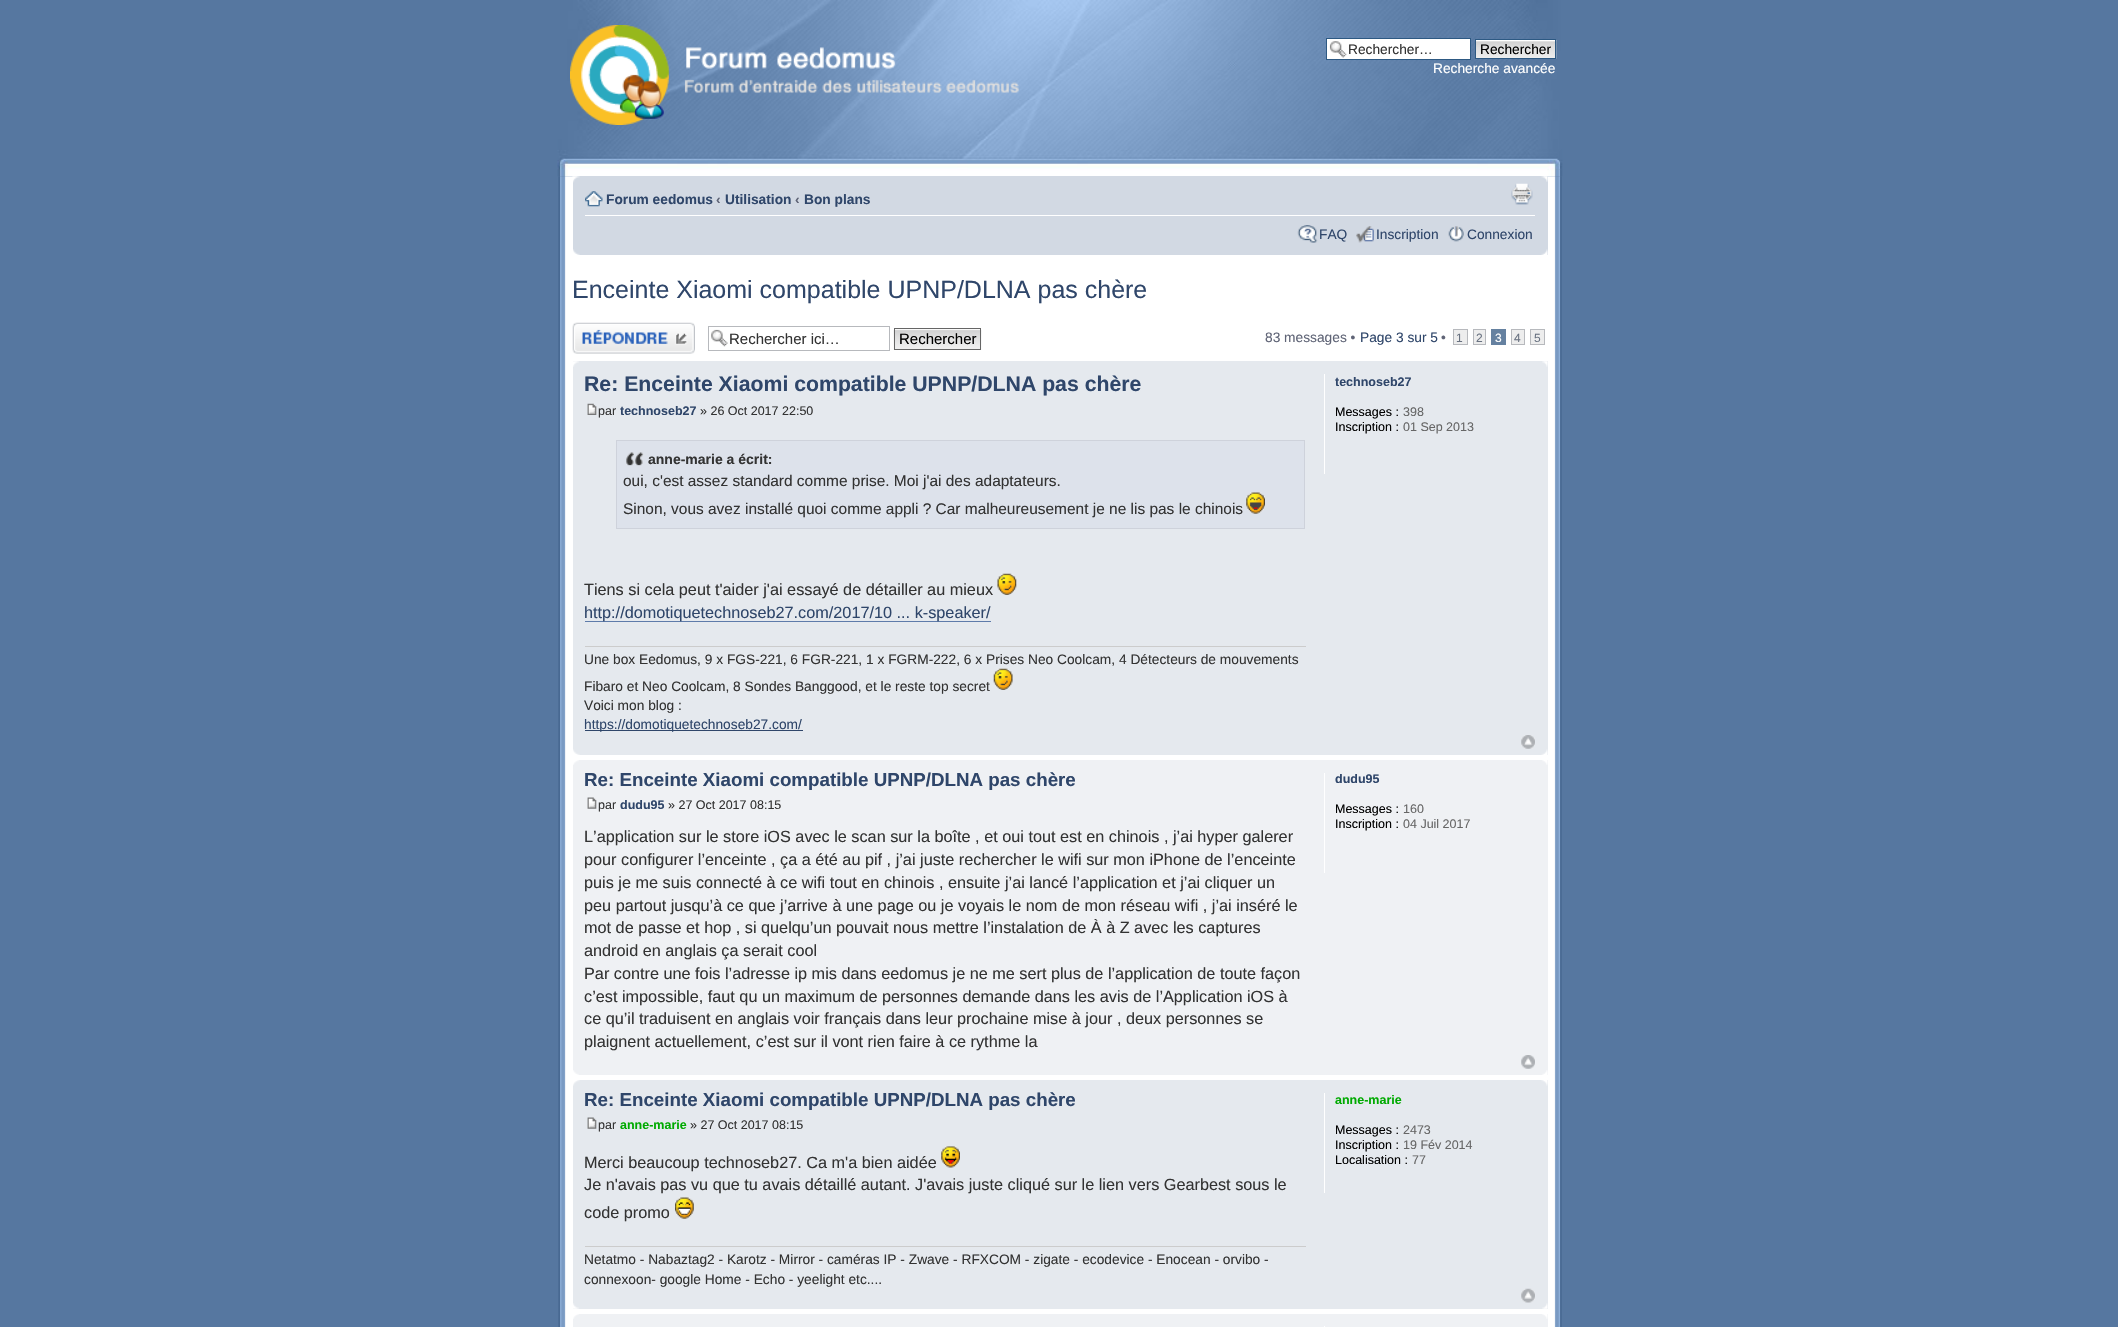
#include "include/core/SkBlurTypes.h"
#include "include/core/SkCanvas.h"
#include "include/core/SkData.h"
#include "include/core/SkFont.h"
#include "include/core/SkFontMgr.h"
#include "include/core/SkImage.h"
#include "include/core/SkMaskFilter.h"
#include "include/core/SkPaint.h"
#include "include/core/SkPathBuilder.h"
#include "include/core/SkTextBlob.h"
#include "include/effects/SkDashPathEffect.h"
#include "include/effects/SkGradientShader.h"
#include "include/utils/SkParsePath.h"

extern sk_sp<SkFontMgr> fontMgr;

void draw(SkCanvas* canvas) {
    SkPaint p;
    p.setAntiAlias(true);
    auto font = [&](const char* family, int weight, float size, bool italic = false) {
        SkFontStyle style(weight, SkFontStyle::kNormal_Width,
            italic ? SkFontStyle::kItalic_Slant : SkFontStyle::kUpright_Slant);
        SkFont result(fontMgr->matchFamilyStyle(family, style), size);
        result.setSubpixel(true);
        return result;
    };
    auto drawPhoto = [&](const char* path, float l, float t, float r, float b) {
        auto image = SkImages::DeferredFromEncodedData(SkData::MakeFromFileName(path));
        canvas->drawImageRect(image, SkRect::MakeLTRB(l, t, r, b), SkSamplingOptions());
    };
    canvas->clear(0xFF5677A0);
    drawPhoto("media/1.png", 557, 0, 1563, 177);
    drawPhoto("media/2.png", 570, 25, 1019, 125);
    p.setColor(0xFFFFFFFF);
    canvas->drawRect(SkRect::MakeLTRB(1327, 39, 1470, 59), p);
    drawPhoto("media/3.png", 1329, 41, 1347, 58);
    p.setStyle(SkPaint::kStroke_Style);
    p.setStrokeWidth(1);
    p.setColor(0xFF2D5983);
    canvas->drawRect(SkRect::MakeLTRB(1326.5f, 38.5f, 1470.5f, 59.5f), p);
    auto font1 = font("Liberation Sans", 400, 13.75f);
    p.setStyle(SkPaint::kFill_Style);
    p.setColor(0xFF333333);
    canvas->drawString("Rechercher…", 1348, 54, font1, p);
    drawPhoto("media/4.png", 1476, 40, 1557, 59);
    p.setStyle(SkPaint::kStroke_Style);
    p.setColor(0xFF2D5983);
    canvas->drawRect(SkRect::MakeLTRB(1475.5f, 39.5f, 1555.5f, 58.5f), p);
    p.setStyle(SkPaint::kFill_Style);
    p.setColor(0xFF000000);
    canvas->drawString("Rechercher", 1480, 54, font1, p);
    p.setColor(0xFFFFFFFF);
    canvas->drawString("Recherche avancée", 1433, 73, font1, p);
    drawPhoto("media/5.png", 558, 176, 1562, 1327);
    p.setColor(0xFFD2D9E3);
    canvas->drawRect(SkRect::MakeLTRB(573, 176, 1548, 255), p);
    drawPhoto("media/6.png", 572, 176, 580, 183);
    drawPhoto("media/7.png", 1541, 176, 1548, 182);
    p.setColor(0xFFFFFFFF);
    canvas->drawRect(SkRect::MakeLTRB(585, 215, 1535, 216), p);
    drawPhoto("media/8.png", 585, 191, 603, 207);
    auto font2 = font("Liberation Sans", 700, 13.75f);
    p.setColor(0xFF2F466A);
    canvas->drawString("Forum eedomus", 606, 204, font2, p);
    p.setColor(0xFF5F6476);
    canvas->drawString("‹", 716, 204, font2, p);
    p.setColor(0xFF2F466A);
    canvas->drawString("Utilisation", 725, 204, font2, p);
    p.setColor(0xFF5F6476);
    canvas->drawString("‹", 795, 204, font2, p);
    p.setColor(0xFF2F466A);
    canvas->drawString("Bon plans", 804, 204, font2, p);
    drawPhoto("media/9.png", 1511, 183, 1533, 205);
    drawPhoto("media/10.png", 1297, 225, 1318, 243);
    canvas->drawString("FAQ", 1319, 239, font1, p);
    drawPhoto("media/11.png", 1356, 226, 1374, 243);
    canvas->drawString("Inscription", 1376, 239, font1, p);
    drawPhoto("media/12.png", 1448, 226, 1464, 242);
    canvas->drawString("Connexion", 1467, 239, font1, p);
    drawPhoto("media/13.png", 573, 249, 580, 255);
    drawPhoto("media/14.png", 1541, 249, 1548, 255);
    auto font3 = font("Liberation Sans", 400, 25);
    canvas->drawString("Enceinte Xiaomi compatible UPNP/DLNA pas chère", 572, 298, font3, p);
    drawPhoto("media/15.png", 572, 322, 695, 354);
    drawPhoto("media/16.png", 711, 329, 728, 347);
    p.setStyle(SkPaint::kStroke_Style);
    p.setColor(0xFFB7B9BD);
    canvas->drawRect(SkRect::MakeLTRB(708.5f, 326.5f, 889.5f, 350.5f), p);
    auto font4 = font("Liberation Sans", 400, 15);
    p.setStyle(SkPaint::kFill_Style);
    p.setColor(0xFF333333);
    canvas->drawString("Rechercher ici…", 729, 344, font4, p);
    p.setColor(0xFFFAFAFA);
    canvas->drawRect(SkRect::MakeLTRB(895, 329, 980, 330), p);
    drawPhoto("media/17.png", 893, 330, 982, 350);
    p.setStyle(SkPaint::kStroke_Style);
    p.setColor(0xFF666666);
    canvas->drawRect(SkRect::MakeLTRB(894.5f, 328.5f, 980.5f, 349.5f), p);
    p.setStyle(SkPaint::kFill_Style);
    p.setColor(0xFF000000);
    canvas->drawString("Rechercher", 899, 344, font4, p);
    p.setColor(0xFF5F6476);
    canvas->drawString("83 messages •", 1265, 342, font1, p);
    p.setColor(0xFF2F466A);
    canvas->drawString("Page 3 sur 5", 1360, 342, font1, p);
    p.setColor(0xFF5F6476);
    canvas->drawString("•", 1441, 342, font1, p);
    p.setColor(0xFFEDEDED);
    canvas->drawRect(SkRect::MakeLTRB(1453.5f, 329.5f, 1467.5f, 344.5f), p);
    p.setStyle(SkPaint::kStroke_Style);
    p.setColor(0xFFB7B9BD);
    canvas->drawRect(SkRect::MakeLTRB(1453.5f, 329.5f, 1467.5f, 344.5f), p);
    auto font5 = font("Liberation Sans", 400, 12);
    p.setStyle(SkPaint::kFill_Style);
    p.setColor(0xFF687180);
    canvas->drawString("1", 1456, 342, font5, p);
    p.setColor(0xFFEDEDED);
    canvas->drawRect(SkRect::MakeLTRB(1473.5f, 329.5f, 1485.5f, 344.5f), p);
    p.setStyle(SkPaint::kStroke_Style);
    p.setColor(0xFFB7B9BD);
    canvas->drawRect(SkRect::MakeLTRB(1473.5f, 329.5f, 1485.5f, 344.5f), p);
    p.setStyle(SkPaint::kFill_Style);
    p.setColor(0xFF687180);
    canvas->drawString("2", 1476, 342, font5, p);
    p.setColor(0xFF6581A0);
    canvas->drawRect(SkRect::MakeLTRB(1491, 329, 1506, 345), p);
    p.setColor(0xFFFFFFFF);
    canvas->drawString("3", 1495, 342, font5, p);
    p.setColor(0xFFEDEDED);
    canvas->drawRect(SkRect::MakeLTRB(1511.5f, 329.5f, 1524.5f, 344.5f), p);
    p.setStyle(SkPaint::kStroke_Style);
    p.setColor(0xFFB7B9BD);
    canvas->drawRect(SkRect::MakeLTRB(1511.5f, 329.5f, 1524.5f, 344.5f), p);
    p.setStyle(SkPaint::kFill_Style);
    p.setColor(0xFF687180);
    canvas->drawString("4", 1514, 342, font5, p);
    p.setColor(0xFFEDEDED);
    canvas->drawRect(SkRect::MakeLTRB(1530.5f, 329.5f, 1544.5f, 344.5f), p);
    p.setStyle(SkPaint::kStroke_Style);
    p.setColor(0xFFB7B9BD);
    canvas->drawRect(SkRect::MakeLTRB(1530.5f, 329.5f, 1544.5f, 344.5f), p);
    p.setStyle(SkPaint::kFill_Style);
    p.setColor(0xFF687180);
    canvas->drawString("5", 1534, 342, font5, p);
    p.setColor(0xFFE5E9EE);
    canvas->drawRect(SkRect::MakeLTRB(573, 361, 1548, 755), p);
    drawPhoto("media/18.png", 573, 361, 579, 367);
    drawPhoto("media/19.png", 1542, 361, 1548, 367);
    auto font6 = font("Liberation Sans", 700, 21.25f);
    p.setColor(0xFF2F466A);
    canvas->drawString("Re: Enceinte Xiaomi compatible UPNP/DLNA pas chère", 584, 391, font6, p);
    drawPhoto("media/20.png", 587, 403, 597, 415);
    auto font7 = font("Liberation Sans", 400, 12.5f);
    p.setColor(0xFF333333);
    canvas->drawString("par", 598, 415, font7, p);
    auto font8 = font("Liberation Sans", 700, 12.5f);
    p.setColor(0xFF2F466A);
    canvas->drawString("technoseb27", 620, 415, font8, p);
    p.setColor(0xFF333333);
    canvas->drawString("» 26 Oct 2017 22:50", 700, 415, font7, p);
    p.setColor(0xFFDDE2EB);
    canvas->drawRect(SkRect::MakeLTRB(617, 441, 1304, 528), p);
    drawPhoto("media/21.png", 626, 452, 644, 466);
    p.setStyle(SkPaint::kStroke_Style);
    p.setColor(0xFFCED2DB);
    canvas->drawRect(SkRect::MakeLTRB(616.5f, 440.5f, 1304.5f, 528.5f), p);
    auto font9 = font("Liberation Sans", 700, 14);
    p.setStyle(SkPaint::kFill_Style);
    p.setColor(0xFF333333);
    canvas->drawString("anne-marie a écrit:", 648, 464, font9, p);
    auto font10 = font("Liberation Sans", 400, 15.45f);
    canvas->drawString("oui, c'est assez standard comme prise. Moi j'ai des adaptateurs.", 623, 486, font10, p);
    canvas->drawString("Sinon, vous avez installé quoi comme appli ? Car malheureusement je ne lis pas le chinois", 623, 514, font10, p);
    drawPhoto("media/22.png", 1246, 492, 1265, 514);
    auto font11 = font("Liberation Sans", 400, 16.25f);
    canvas->drawString("Tiens si cela peut t'aider j'ai essayé de détailler au mieux", 584, 595, font11, p);
    drawPhoto("media/23.png", 997, 573, 1017, 595);
    p.setColor(0xFF5E7BAA);
    canvas->drawRect(SkRect::MakeLTRB(585, 621, 991, 622), p);
    p.setColor(0xFF2F466A);
    canvas->drawString("http://domotiquetechnoseb27.com/2017/10 ... k-speaker/", 584, 618, font11, p);
    p.setColor(0xFFCCCCCC);
    canvas->drawRect(SkRect::MakeLTRB(585, 646, 1306, 647), p);
    p.setColor(0xFF333333);
    canvas->drawString("Une box Eedomus, 9 x FGS-221, 6 FGR-221, 1 x FGRM-222, 6 x Prises Neo Coolcam, 4 Détecteurs de mouvements", 584, 664, font1, p);
    canvas->drawString("Fibaro et Neo Coolcam, 8 Sondes Banggood, et le reste top secret", 584, 691, font1, p);
    drawPhoto("media/24.png", 993, 668, 1013, 690);
    canvas->drawString("Voici mon blog :", 584, 710, font1, p);
    p.setColor(0xFF2F466A);
    canvas->drawRect(SkRect::MakeLTRB(585, 730, 803, 731), p);
    canvas->drawString("https://domotiquetechnoseb27.com/", 584, 729, font1, p);
    p.setColor(0xFFFFFFFF);
    canvas->drawRect(SkRect::MakeLTRB(1324, 374, 1325, 474), p);
    p.setColor(0xFF2F466A);
    canvas->drawString("technoseb27", 1335, 386, font8, p);
    p.setColor(0xFF000000);
    canvas->drawString("Messages :", 1335, 416, font7, p);
    p.setColor(0xFF666666);
    canvas->drawString("398", 1403, 416, font7, p);
    p.setColor(0xFF000000);
    canvas->drawString("Inscription :", 1335, 431, font7, p);
    p.setColor(0xFF666666);
    canvas->drawString("01 Sep 2013", 1403, 431, font7, p);
    drawPhoto("media/25.png", 1521, 735, 1535, 749);
    drawPhoto("media/26.png", 573, 749, 580, 755);
    drawPhoto("media/27.png", 1541, 749, 1548, 755);
    p.setColor(0xFFEFF1F4);
    canvas->drawRect(SkRect::MakeLTRB(573, 760, 1548, 1075), p);
    drawPhoto("media/28.png", 573, 760, 579, 765);
    drawPhoto("media/29.png", 1542, 760, 1548, 765);
    auto font12 = font("Liberation Sans", 700, 18.75f);
    p.setColor(0xFF2F466A);
    canvas->drawString("Re: Enceinte Xiaomi compatible UPNP/DLNA pas chère", 584, 786, font12, p);
    drawPhoto("media/30.png", 587, 797, 597, 809);
    p.setColor(0xFF333333);
    canvas->drawString("par", 598, 809, font7, p);
    p.setColor(0xFF2F466A);
    canvas->drawString("dudu95", 620, 809, font8, p);
    p.setColor(0xFF333333);
    canvas->drawString("» 27 Oct 2017 08:15", 668, 809, font7, p);
    {
        const struct { const char* s; float x, y; } items[] = {
            {"L’application sur le store iOS avec le scan sur la boîte , et oui tout est en chinois , j’ai hyper galerer", 584, 842},
            {"pour configurer l’enceinte , ça a été au pif , j’ai juste rechercher le wifi sur mon iPhone de l’enceinte", 584, 865},
            {"puis je me suis connecté à ce wifi tout en chinois , ensuite j’ai lancé l’application et j’ai cliquer un", 584, 888},
            {"peu partout jusqu’à ce que j’arrive à une page ou je voyais le nom de mon réseau wifi , j’ai inséré le", 584, 911},
            {"mot de passe et hop , si quelqu’un pouvait nous mettre l’instalation de À à Z avec les captures", 584, 933},
            {"android en anglais ça serait cool", 584, 956},
            {"Par contre une fois l’adresse ip mis dans eedomus je ne me sert plus de l’application de toute façon", 584, 979},
            {"c’est impossible, faut qu un maximum de personnes demande dans les avis de l’Application iOS à", 584, 1002},
            {"ce qu’il traduisent en anglais voir français dans leur prochaine mise à jour , deux personnes se", 584, 1024},
            {"plaignent actuellement, c’est sur il vont rien faire à ce rythme la", 584, 1047},
        };
        for (auto [s, x, y] : items) {
            canvas->drawString(s, x, y, font11, p);
        }
    }
    p.setColor(0xFFFFFFFF);
    canvas->drawRect(SkRect::MakeLTRB(1324, 773, 1325, 873), p);
    p.setColor(0xFF2F466A);
    canvas->drawString("dudu95", 1335, 783, font8, p);
    p.setColor(0xFF000000);
    canvas->drawString("Messages :", 1335, 813, font7, p);
    p.setColor(0xFF666666);
    canvas->drawString("160", 1403, 813, font7, p);
    p.setColor(0xFF000000);
    canvas->drawString("Inscription :", 1335, 828, font7, p);
    p.setColor(0xFF666666);
    canvas->drawString("04 Juil 2017", 1403, 828, font7, p);
    drawPhoto("media/31.png", 1521, 1055, 1535, 1069);
    drawPhoto("media/32.png", 573, 1070, 579, 1075);
    drawPhoto("media/33.png", 1542, 1070, 1548, 1075);
    p.setColor(0xFFE5E9EE);
    canvas->drawRect(SkRect::MakeLTRB(573, 1080, 1548, 1309), p);
    drawPhoto("media/34.png", 573, 1080, 580, 1086);
    drawPhoto("media/35.png", 1541, 1080, 1548, 1086);
    p.setColor(0xFF2F466A);
    canvas->drawString("Re: Enceinte Xiaomi compatible UPNP/DLNA pas chère", 584, 1106, font12, p);
    drawPhoto("media/36.png", 587, 1117, 597, 1129);
    p.setColor(0xFF333333);
    canvas->drawString("par", 598, 1129, font7, p);
    p.setColor(0xFF00AA00);
    canvas->drawString("anne-marie", 620, 1129, font8, p);
    p.setColor(0xFF333333);
    canvas->drawString("» 27 Oct 2017 08:15", 690, 1129, font7, p);
    canvas->drawString("Merci beaucoup technoseb27. Ca m'a bien aidée", 584, 1168, font11, p);
    drawPhoto("media/37.png", 941, 1146, 960, 1168);
    canvas->drawString("Je n'avais pas vu que tu avais détaillé autant. J'avais juste cliqué sur le lien vers Gearbest sous le", 584, 1190, font11, p);
    canvas->drawString("code promo", 584, 1218, font11, p);
    drawPhoto("media/38.png", 675, 1197, 694, 1219);
    p.setColor(0xFFCCCCCC);
    canvas->drawRect(SkRect::MakeLTRB(585, 1246, 1306, 1247), p);
    p.setColor(0xFF333333);
    canvas->drawString("Netatmo - Nabaztag2 - Karotz - Mirror - caméras IP - Zwave - RFXCOM - zigate - ecodevice - Enocean - orvibo -", 584, 1264, font1, p);
    canvas->drawString("connexoon- google Home - Echo - yeelight etc....", 584, 1284, font1, p);
    p.setColor(0xFFFFFFFF);
    canvas->drawRect(SkRect::MakeLTRB(1324, 1093, 1325, 1193), p);
    p.setColor(0xFF00AA00);
    canvas->drawString("anne-marie", 1335, 1104, font8, p);
    p.setColor(0xFF000000);
    canvas->drawString("Messages :", 1335, 1134, font7, p);
    p.setColor(0xFF666666);
    canvas->drawString("2473", 1403, 1134, font7, p);
    p.setColor(0xFF000000);
    canvas->drawString("Inscription :", 1335, 1149, font7, p);
    p.setColor(0xFF666666);
    canvas->drawString("19 Fév 2014", 1403, 1149, font7, p);
    p.setColor(0xFF000000);
    canvas->drawString("Localisation :", 1335, 1164, font7, p);
    p.setColor(0xFF666666);
    canvas->drawString("77", 1412, 1164, font7, p);
    drawPhoto("media/39.png", 1521, 1288, 1535, 1303);
    drawPhoto("media/40.png", 573, 1303, 579, 1309);
    drawPhoto("media/41.png", 1542, 1303, 1548, 1309);
    p.setColor(0xFFEFF1F4);
    canvas->drawRect(SkRect::MakeLTRB(573, 1314, 1548, 1327), p);
    drawPhoto("media/42.png", 573, 1314, 579, 1319);
    drawPhoto("media/43.png", 1542, 1314, 1548, 1319);
    p.setColor(0xFFFFFFFF);
    canvas->drawRect(SkRect::MakeLTRB(1324, 1326, 1325, 1327), p);
}
